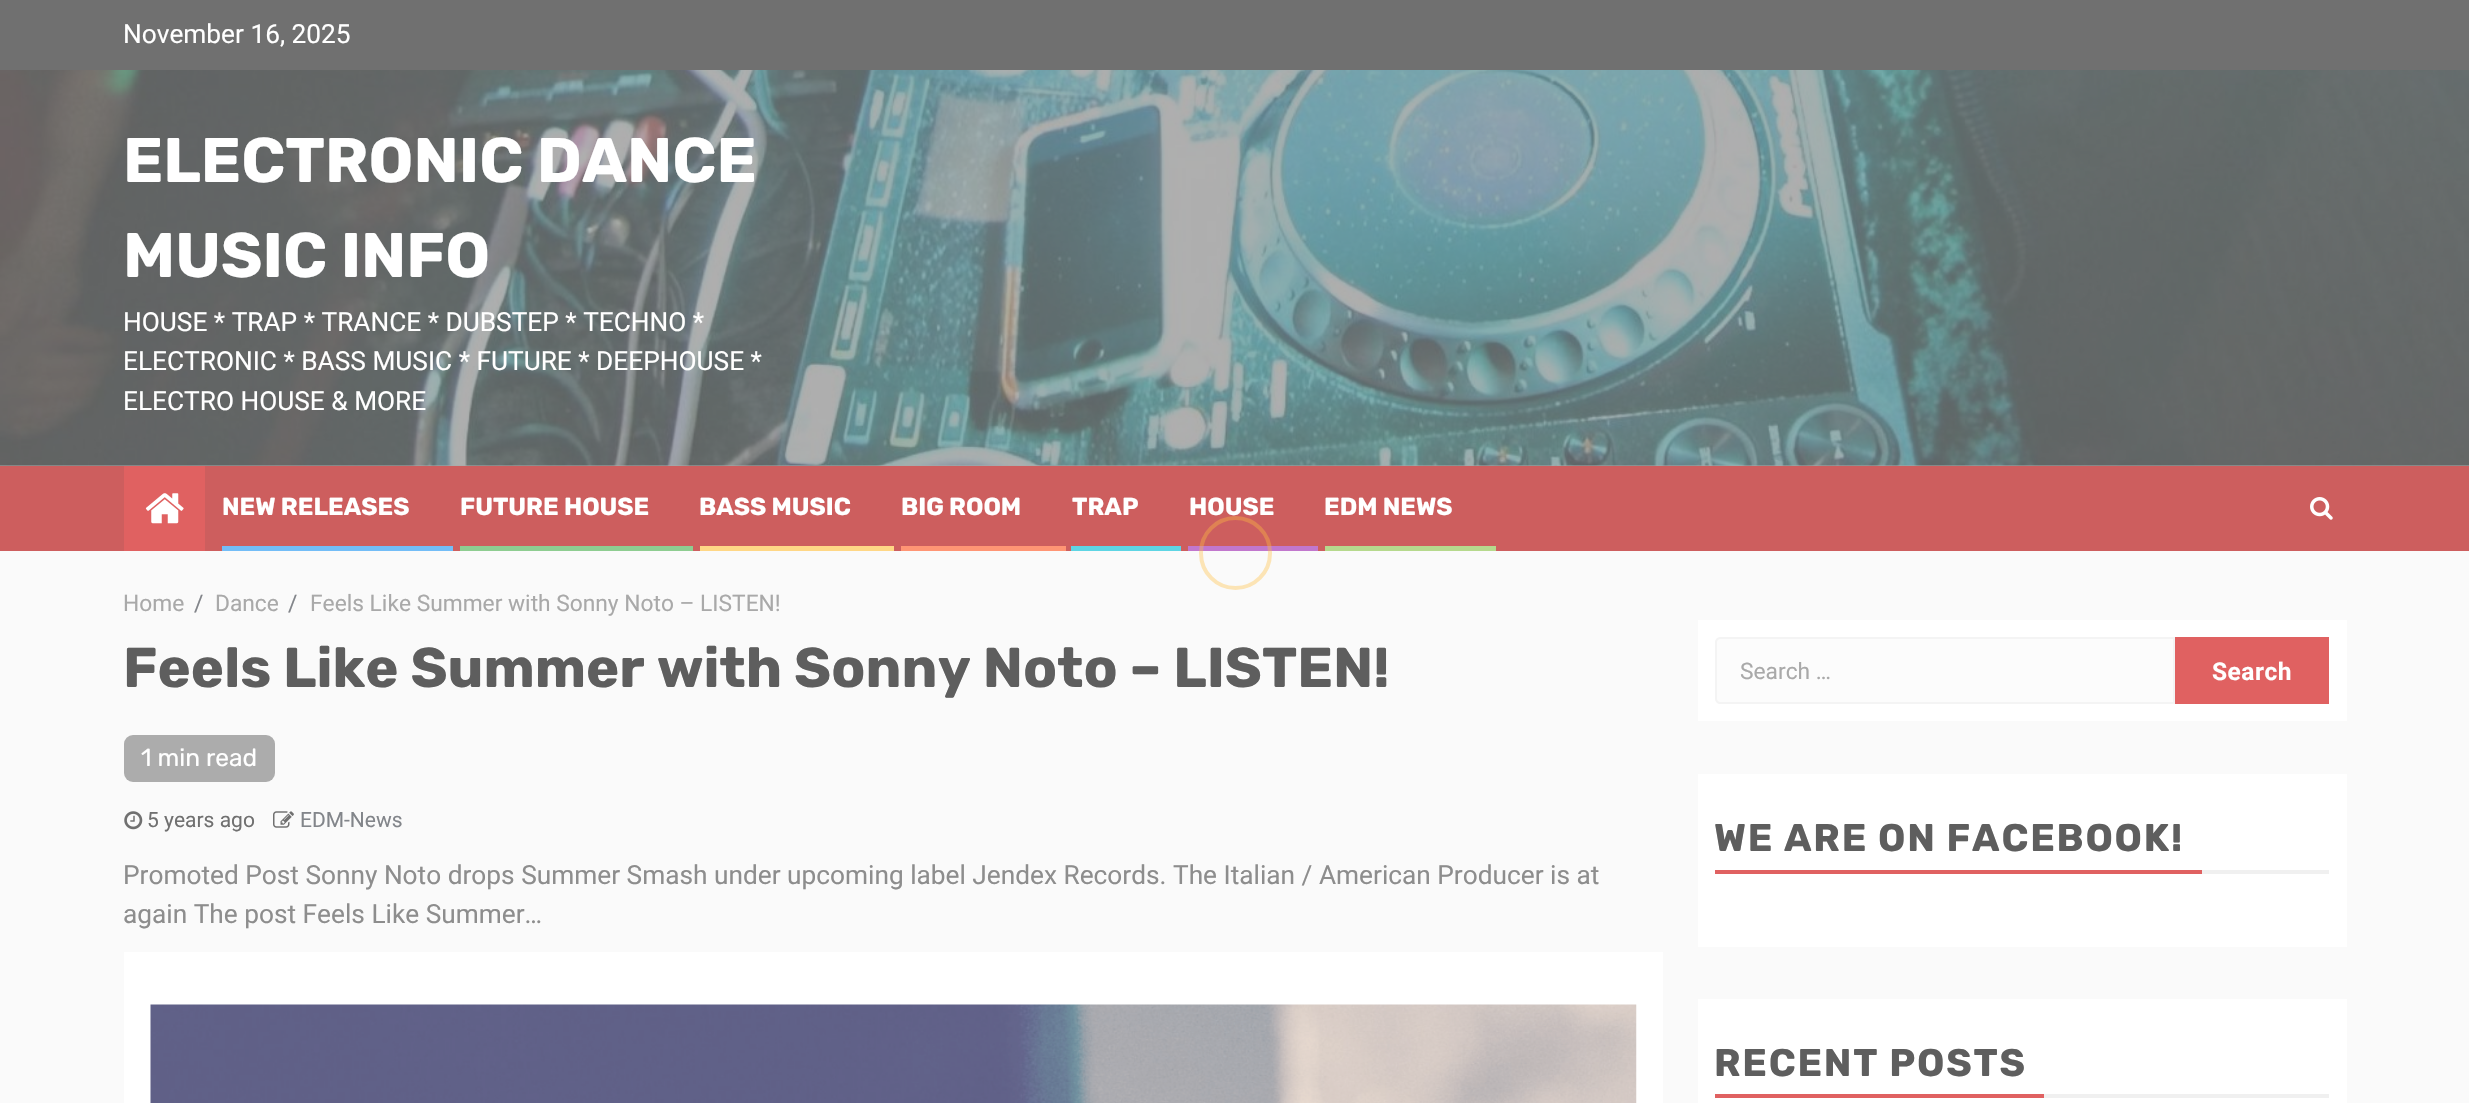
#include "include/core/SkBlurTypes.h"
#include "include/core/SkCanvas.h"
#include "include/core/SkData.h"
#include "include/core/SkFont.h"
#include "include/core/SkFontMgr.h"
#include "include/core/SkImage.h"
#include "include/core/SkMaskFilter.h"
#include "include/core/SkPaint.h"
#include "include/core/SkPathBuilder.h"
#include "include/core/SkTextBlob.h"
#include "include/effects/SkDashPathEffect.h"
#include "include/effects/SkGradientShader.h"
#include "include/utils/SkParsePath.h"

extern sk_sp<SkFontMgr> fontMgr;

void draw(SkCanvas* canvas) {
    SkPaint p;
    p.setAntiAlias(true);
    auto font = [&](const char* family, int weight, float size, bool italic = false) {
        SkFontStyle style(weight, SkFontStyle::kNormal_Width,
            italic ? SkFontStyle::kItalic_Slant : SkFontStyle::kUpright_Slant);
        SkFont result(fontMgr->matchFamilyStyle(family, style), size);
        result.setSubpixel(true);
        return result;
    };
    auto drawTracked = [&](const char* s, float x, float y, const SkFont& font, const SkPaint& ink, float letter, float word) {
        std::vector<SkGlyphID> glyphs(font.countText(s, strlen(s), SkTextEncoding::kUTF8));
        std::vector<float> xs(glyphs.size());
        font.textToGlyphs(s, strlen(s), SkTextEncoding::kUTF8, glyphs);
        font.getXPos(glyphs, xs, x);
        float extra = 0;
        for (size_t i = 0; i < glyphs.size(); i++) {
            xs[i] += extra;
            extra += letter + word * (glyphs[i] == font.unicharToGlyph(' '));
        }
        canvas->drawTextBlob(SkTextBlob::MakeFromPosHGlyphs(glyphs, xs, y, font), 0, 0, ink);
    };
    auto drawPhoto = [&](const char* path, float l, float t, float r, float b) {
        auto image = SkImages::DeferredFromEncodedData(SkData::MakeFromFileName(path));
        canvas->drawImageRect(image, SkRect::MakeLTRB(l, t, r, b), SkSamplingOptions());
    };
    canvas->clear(0xFFFAFAFA);
    p.setColor(0xFFAAAAAA);
    canvas->drawRect(SkRect::MakeLTRB(0, 465, 2469, 466), p);
    p.setColor(0xFF707070);
    canvas->drawRect(SkRect::MakeLTRB(0, 0, 2469, 70), p);
    auto font1 = font("Roboto", 400, 26.25f);
    p.setColor(0xFFFFFFFF);
    canvas->drawString("November 16, 2025", 123, 43, font1, p);
    drawPhoto("media/1.png", 0, 70, 2469, 466);
    auto font2 = font("Rubik", 700, 63);
    canvas->drawString("ELECTRONIC DANCE", 123, 182, font2, p);
    canvas->drawString("MUSIC INFO", 123, 277, font2, p);
    {
        const struct { const char* s; float x, y; } items[] = {
            {"HOUSE * TRAP * TRANCE * DUBSTEP * TECHNO *", 123, 331},
            {"ELECTRONIC * BASS MUSIC * FUTURE * DEEPHOUSE *", 123, 370},
            {"ELECTRO HOUSE & MORE", 123, 410},
        };
        for (auto [s, x, y] : items) {
            canvas->drawString(s, x, y, font1, p);
        }
    }
    p.setColor(0xFFCD5E5E);
    canvas->drawRect(SkRect::MakeLTRB(0, 466, 2469, 551), p);
    p.setColor(0xFFE06161);
    canvas->drawRect(SkRect::MakeLTRB(124, 466, 205, 551), p);
    drawPhoto("media/2.png", 145, 493, 184, 524);
    auto font3 = font("Rubik", 700, 24.5f);
    p.setColor(0xFFFFFFFF);
    canvas->drawString("NEW RELEASES", 222, 515, font3, p);
    p.setColor(0xFF73BDF7);
    canvas->drawRect(SkRect::MakeLTRB(222, 546, 453, 551), p);
    p.setColor(0xFFFFFFFF);
    canvas->drawString("FUTURE HOUSE", 460, 515, font3, p);
    p.setColor(0xFF8ECD91);
    canvas->drawRect(SkRect::MakeLTRB(460, 546, 693, 551), p);
    p.setColor(0xFFFFFFFF);
    canvas->drawString("BASS MUSIC", 699, 515, font3, p);
    p.setColor(0xFFFFD786);
    canvas->drawRect(SkRect::MakeLTRB(700, 546, 894, 551), p);
    p.setColor(0xFFFFFFFF);
    canvas->drawString("BIG ROOM", 901, 515, font3, p);
    p.setColor(0xFFFF9574);
    canvas->drawRect(SkRect::MakeLTRB(901, 546, 1066, 551), p);
    p.setColor(0xFFFFFFFF);
    canvas->drawString("TRAP", 1072, 515, font3, p);
    p.setColor(0xFF5ED5E4);
    canvas->drawRect(SkRect::MakeLTRB(1071, 546, 1181, 551), p);
    p.setColor(0xFFFFFFFF);
    canvas->drawString("HOUSE", 1189, 515, font3, p);
    p.setColor(0xFFC177CD);
    canvas->drawRect(SkRect::MakeLTRB(1188, 546, 1318, 551), p);
    p.setColor(0xFFFFFFFF);
    canvas->drawString("EDM NEWS", 1324, 515, font3, p);
    p.setColor(0xFFB6D98D);
    canvas->drawRect(SkRect::MakeLTRB(1325, 546, 1496, 551), p);
    drawPhoto("media/3.png", 2310, 497, 2333, 520);
    auto font4 = font("Roboto", 400, 22.75f);
    p.setColor(0xFFA9A9A9);
    canvas->drawString("Home", 123, 611, font4, p);
    p.setColor(0xFF82858A);
    canvas->drawString("/", 194, 611, font4, p);
    p.setColor(0xFFA9A9A9);
    canvas->drawString("Dance", 215, 611, font4, p);
    p.setColor(0xFF82858A);
    canvas->drawString("/", 288, 611, font4, p);
    p.setColor(0xFFA9A9A9);
    canvas->drawString("Feels Like Summer with Sonny Noto – LISTEN!", 310, 611, font4, p);
    auto font5 = font("Rubik", 700, 56);
    p.setColor(0xFF5E5E5E);
    canvas->drawString("Feels Like Summer with Sonny Noto – LISTEN!", 123, 687, font5, p);
    p.setColor(0xFFACACAC);
    canvas->drawRoundRect(SkRect::MakeLTRB(124, 735, 275, 782), 9, 9, p);
    auto font6 = font("Rubik", 400, 24.5f);
    p.setColor(0xFFFFFFFF);
    canvas->drawString("1 min read", 141, 766, font6, p);
    drawPhoto("media/4.png", 124, 811, 143, 830);
    auto font7 = font("Roboto", 400, 21);
    p.setColor(0xFF707070);
    canvas->drawString("5 years ago", 147, 827, font7, p);
    drawPhoto("media/5.png", 273, 811, 294, 828);
    p.setColor(0xFF82858A);
    canvas->drawString("EDM-News", 300, 827, font7, p);
    p.setColor(0xFF8D8D8D);
    canvas->drawString("Promoted Post Sonny Noto drops Summer Smash under upcoming label Jendex Records. The Italian / American Producer is at", 123, 884, font1, p);
    canvas->drawString("again The post Feels Like Summer…", 123, 923, font1, p);
    p.setColor(0xFFFFFFFF);
    canvas->drawRect(SkRect::MakeLTRB(124, 952, 1663, 1103), p);
    drawPhoto("media/6.png", 150, 1004, 1637, 1103);
    canvas->drawRect(SkRect::MakeLTRB(1698, 620, 2347, 721), p);
    p.setColor(0xFFFCFCFC);
    canvas->drawPath(SkPathBuilder().moveTo(1720, 638).lineTo(2174, 638).lineTo(2174, 703).lineTo(1720, 703).cubicTo(1718, 703, 1716, 701, 1716, 699).lineTo(1716, 642).cubicTo(1716, 640, 1718, 638, 1720, 638).close().detach(), p);
    p.setStyle(SkPaint::kStroke_Style);
    p.setStrokeWidth(2);
    p.setColor(0xFFF4F4F4);
    canvas->drawPath(SkPathBuilder().moveTo(1720, 638).lineTo(2174, 638).lineTo(2174, 703).lineTo(1720, 703).cubicTo(1718, 703, 1716, 701, 1716, 699).lineTo(1716, 642).cubicTo(1716, 640, 1718, 638, 1720, 638).close().detach(), p);
    p.setStyle(SkPaint::kFill_Style);
    p.setColor(0xFFA9A9A9);
    canvas->drawString("Search …", 1740, 679, font4, p);
    p.setColor(0xFFE06161);
    canvas->drawRect(SkRect::MakeLTRB(2175, 637, 2329, 704), p);
    auto font8 = font("Roboto", 700, 24.5f);
    p.setColor(0xFFFFFFFF);
    drawTracked("Search", 2212, 680, font8, p, 0.5f, 0);
    canvas->drawRect(SkRect::MakeLTRB(1698, 774, 2347, 947), p);
    p.setColor(0xFFE06161);
    canvas->drawRect(SkRect::MakeLTRB(1715, 870, 2202, 874), p);
    auto font9 = font("Rubik", 700, 38.5f);
    p.setColor(0xFF5E5E5E);
    drawTracked("WE ARE ON FACEBOOK!", 1714, 851, font9, p, 1.75f, 0);
    {
        const struct { float l, t, r, b; SkColor color; } items[] = {
            {2202, 870, 2329, 874, 0xFFF0F0F0},
            {1698, 999, 2347, 1103, 0xFFFFFFFF},
            {1715, 1094, 2044, 1098, 0xFFE06161},
        };
        for (auto [l, t, r, b, color] : items) {
            p.setColor(color);
            canvas->drawRect(SkRect::MakeLTRB(l, t, r, b), p);
        }
    }
    p.setColor(0xFF5E5E5E);
    drawTracked("RECENT POSTS", 1714, 1076, font9, p, 1.75f, 0);
    p.setColor(0xFFF0F0F0);
    canvas->drawRect(SkRect::MakeLTRB(2044, 1094, 2329, 1098), p);
    p.setStyle(SkPaint::kStroke_Style);
    p.setStrokeWidth(4);
    p.setColor(0x5EFFBF3F);
    canvas->drawRoundRect(SkRect::MakeLTRB(1201, 518, 1270, 588), 34.5f, 34.5f, p);
}
